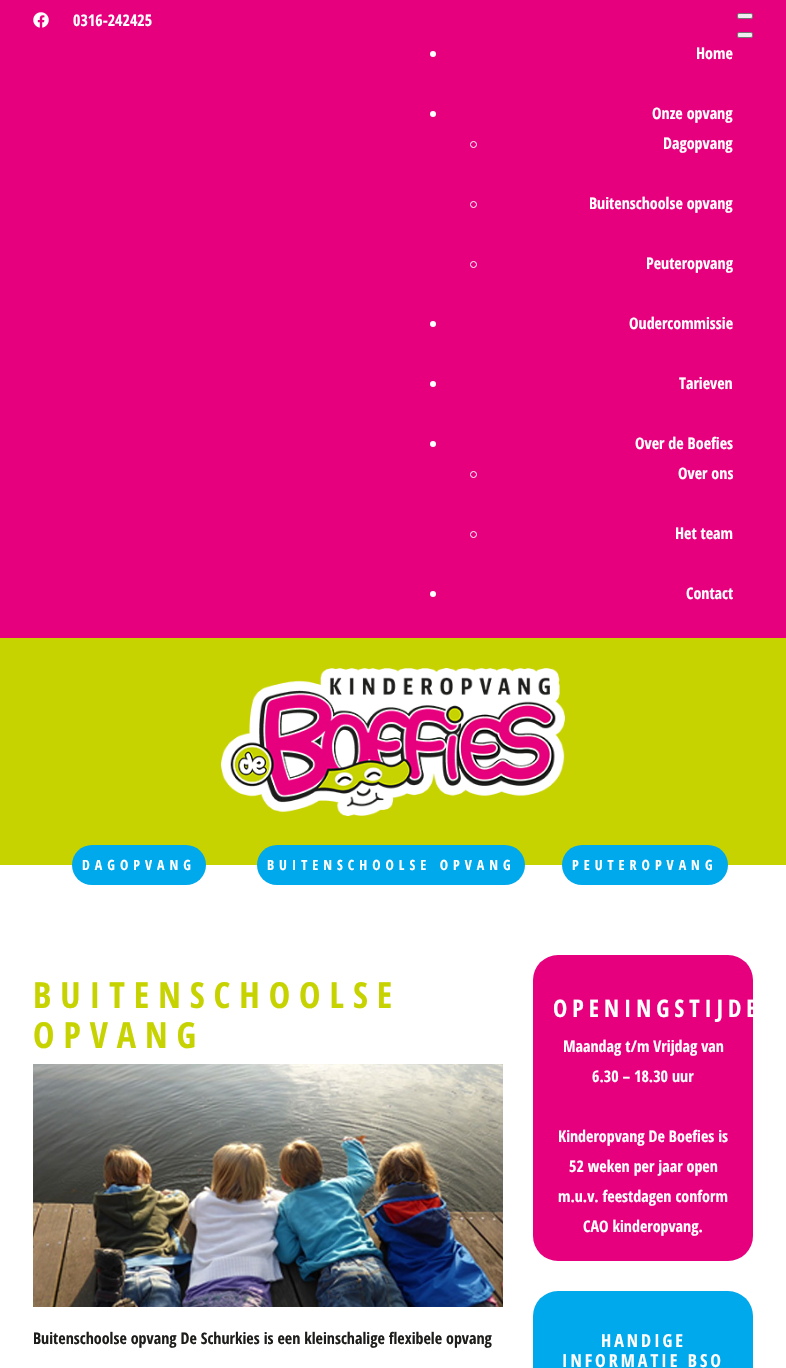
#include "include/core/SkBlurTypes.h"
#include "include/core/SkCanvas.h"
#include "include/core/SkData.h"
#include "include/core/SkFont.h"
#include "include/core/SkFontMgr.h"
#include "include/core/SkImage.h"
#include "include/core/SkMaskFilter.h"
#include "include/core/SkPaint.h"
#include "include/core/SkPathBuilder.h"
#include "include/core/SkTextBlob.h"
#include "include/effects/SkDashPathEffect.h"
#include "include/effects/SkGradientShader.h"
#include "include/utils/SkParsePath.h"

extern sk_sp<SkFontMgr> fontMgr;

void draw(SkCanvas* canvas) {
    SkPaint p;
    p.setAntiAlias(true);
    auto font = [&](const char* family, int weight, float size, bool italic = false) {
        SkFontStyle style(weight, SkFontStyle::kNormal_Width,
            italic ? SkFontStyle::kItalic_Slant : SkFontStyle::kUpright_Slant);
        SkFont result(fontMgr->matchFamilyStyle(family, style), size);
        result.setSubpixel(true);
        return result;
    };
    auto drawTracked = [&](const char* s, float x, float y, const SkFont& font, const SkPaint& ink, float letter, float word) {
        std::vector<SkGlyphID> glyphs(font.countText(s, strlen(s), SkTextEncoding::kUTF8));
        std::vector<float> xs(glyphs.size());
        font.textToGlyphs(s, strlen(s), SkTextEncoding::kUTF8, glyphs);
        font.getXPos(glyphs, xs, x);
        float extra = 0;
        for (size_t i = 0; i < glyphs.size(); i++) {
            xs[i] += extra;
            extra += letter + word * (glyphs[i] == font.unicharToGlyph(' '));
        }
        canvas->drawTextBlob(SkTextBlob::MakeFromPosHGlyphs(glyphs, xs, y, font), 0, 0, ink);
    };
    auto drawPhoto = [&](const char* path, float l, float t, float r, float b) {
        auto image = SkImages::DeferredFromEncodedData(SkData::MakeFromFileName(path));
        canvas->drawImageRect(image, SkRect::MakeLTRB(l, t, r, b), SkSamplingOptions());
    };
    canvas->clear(0xFFFFFFFF);
    p.setColor(0xFFE6007E);
    canvas->drawRect(SkRect::MakeLTRB(0, 0, 786, 638), p);
    drawPhoto("media/1.png", 33, 12, 49, 28);
    auto font1 = font("Open Sans Condensed", 700, 16);
    p.setColor(0xFFFFFFFF);
    canvas->drawString("0316-242425", 73, 26, font1, p);
    p.setColor(0xFFEFEFEF);
    canvas->drawRoundRect(SkRect::MakeLTRB(737.5f, 13.5f, 752.5f, 18.5f), 1.5f, 1.5f, p);
    p.setStyle(SkPaint::kStroke_Style);
    p.setStrokeWidth(1);
    p.setColor(0xFF767676);
    canvas->drawRoundRect(SkRect::MakeLTRB(737.5f, 13.5f, 752.5f, 18.5f), 1.5f, 1.5f, p);
    p.setStyle(SkPaint::kFill_Style);
    p.setColor(0xFFEFEFEF);
    canvas->drawRoundRect(SkRect::MakeLTRB(737.5f, 32.5f, 752.5f, 37.5f), 1.5f, 1.5f, p);
    p.setStyle(SkPaint::kStroke_Style);
    p.setColor(0xFF767676);
    canvas->drawRoundRect(SkRect::MakeLTRB(737.5f, 32.5f, 752.5f, 37.5f), 1.5f, 1.5f, p);
    p.setStyle(SkPaint::kFill_Style);
    p.setColor(0xFFFFFFFF);
    canvas->drawCircle(433, 54, 3, p);
    canvas->drawString("Home", 696, 59, font1, p);
    canvas->drawCircle(433, 114, 3, p);
    canvas->drawString("Onze opvang", 652, 119, font1, p);
    p.setStyle(SkPaint::kStroke_Style);
    canvas->drawCircle(473.5f, 144.5f, 3, p);
    p.setStyle(SkPaint::kFill_Style);
    canvas->drawString("Dagopvang", 663, 149, font1, p);
    p.setStyle(SkPaint::kStroke_Style);
    canvas->drawCircle(473.5f, 204.5f, 3, p);
    p.setStyle(SkPaint::kFill_Style);
    canvas->drawString("Buitenschoolse opvang", 589, 209, font1, p);
    p.setStyle(SkPaint::kStroke_Style);
    canvas->drawCircle(473.5f, 264.5f, 3, p);
    p.setStyle(SkPaint::kFill_Style);
    canvas->drawString("Peuteropvang", 646, 269, font1, p);
    canvas->drawCircle(433, 324, 3, p);
    canvas->drawString("Oudercommissie", 629, 329, font1, p);
    canvas->drawCircle(433, 384, 3, p);
    canvas->drawString("Tarieven", 679, 389, font1, p);
    canvas->drawCircle(433, 444, 3, p);
    canvas->drawString("Over de Boefies", 635, 449, font1, p);
    p.setStyle(SkPaint::kStroke_Style);
    canvas->drawCircle(473.5f, 474.5f, 3, p);
    p.setStyle(SkPaint::kFill_Style);
    canvas->drawString("Over ons", 678, 479, font1, p);
    p.setStyle(SkPaint::kStroke_Style);
    canvas->drawCircle(473.5f, 534.5f, 3, p);
    p.setStyle(SkPaint::kFill_Style);
    canvas->drawString("Het team", 675, 539, font1, p);
    canvas->drawCircle(433, 594, 3, p);
    canvas->drawString("Contact", 686, 599, font1, p);
    p.setColor(0xFFC7D301);
    canvas->drawRect(SkRect::MakeLTRB(0, 638, 786, 865), p);
    drawPhoto("media/2.png", 221, 668, 565, 816);
    p.setColor(0xFF00A8EC);
    canvas->drawRoundRect(SkRect::MakeLTRB(72, 845, 206, 885), 20, 20, p);
    auto font2 = font("Open Sans Condensed", 700, 14);
    p.setColor(0xFFFFFFFF);
    drawTracked("DAGOPVANG", 82, 870, font2, p, 5, 0);
    p.setColor(0xFF00A8EC);
    canvas->drawRoundRect(SkRect::MakeLTRB(257, 845, 525, 885), 20, 20, p);
    p.setColor(0xFFFFFFFF);
    drawTracked("BUITENSCHOOLSE OPVANG", 267, 870, font2, p, 5, 0);
    p.setColor(0xFF00A8EC);
    canvas->drawRoundRect(SkRect::MakeLTRB(562, 845, 728, 885), 20, 20, p);
    p.setColor(0xFFFFFFFF);
    drawTracked("PEUTEROPVANG", 572, 870, font2, p, 5, 0);
    auto font3 = font("Open Sans Condensed", 700, 36);
    p.setColor(0xFFC7D301);
    drawTracked("BUITENSCHOOLSE", 33, 1008, font3, p, 9, 0);
    drawTracked("OPVANG", 33, 1048, font3, p, 9, 0);
    drawPhoto("media/3.png", 33, 1064, 503, 1307);
    p.setColor(0xFF1D1D1B);
    canvas->drawString("Buitenschoolse opvang De Schurkies is een kleinschalige flexibele opvang", 33, 1344, font1, p);
    p.setColor(0xFFE6007E);
    canvas->drawRoundRect(SkRect::MakeLTRB(533, 955, 753, 1261), 25, 25, p);
    auto font4 = font("Open Sans Condensed", 700, 24);
    p.setColor(0xFFFFFFFF);
    drawTracked("OPENINGSTIJDE", 553, 1017, font4, p, 5, 0);
    {
        const struct { const char* s; float x, y; } items[] = {
            {"Maandag t/m Vrijdag van", 563, 1052},
            {"6.30 – 18.30 uur", 592, 1082},
            {"Kinderopvang De Boefies is", 558, 1142},
            {"52 weken per jaar open", 569, 1172},
            {"m.u.v. feestdagen conform", 558, 1202},
            {"CAO kinderopvang.", 583, 1232},
        };
        for (auto [s, x, y] : items) {
            canvas->drawString(s, x, y, font1, p);
        }
    }
    p.setColor(0xFF00A8EC);
    canvas->drawRoundRect(SkRect::MakeLTRB(533, 1291, 753, 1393), 25, 25, p);
    auto font5 = font("Open Sans Condensed", 700, 18);
    p.setColor(0xFFFFFFFF);
    drawTracked("HANDIGE", 601, 1347, font5, p, 3, 0);
    drawTracked("INFORMATIE BSO", 562, 1367, font5, p, 3, 0);
}
